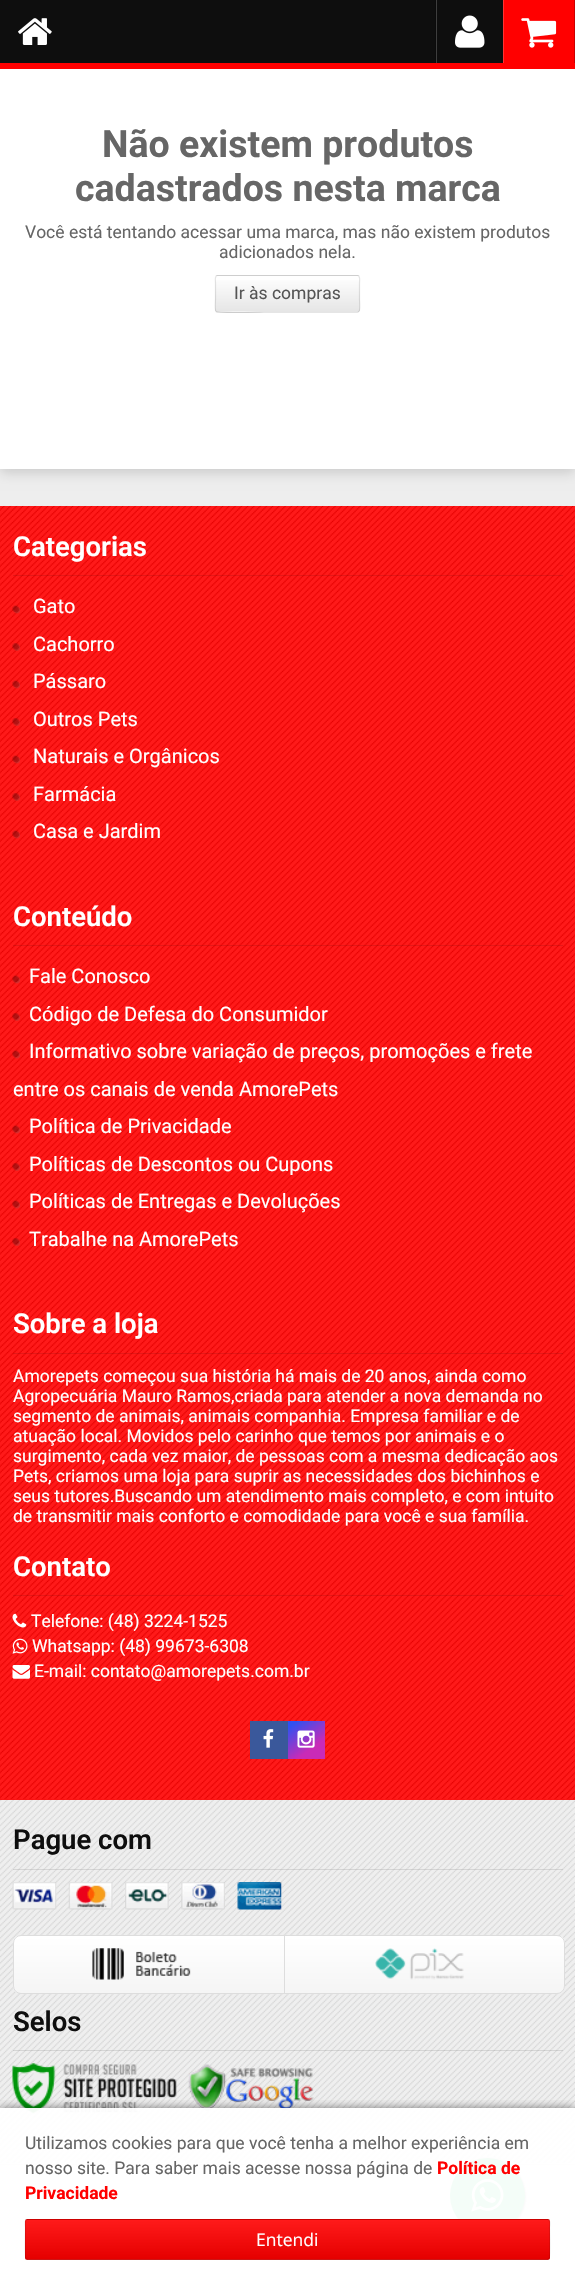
#include "include/core/SkBlurTypes.h"
#include "include/core/SkCanvas.h"
#include "include/core/SkData.h"
#include "include/core/SkFont.h"
#include "include/core/SkFontMgr.h"
#include "include/core/SkImage.h"
#include "include/core/SkMaskFilter.h"
#include "include/core/SkPaint.h"
#include "include/core/SkPathBuilder.h"
#include "include/core/SkTextBlob.h"
#include "include/effects/SkDashPathEffect.h"
#include "include/effects/SkGradientShader.h"
#include "include/utils/SkParsePath.h"

extern sk_sp<SkFontMgr> fontMgr;

void draw(SkCanvas* canvas) {
    SkPaint p;
    p.setAntiAlias(true);
    auto font = [&](const char* family, int weight, float size, bool italic = false) {
        SkFontStyle style(weight, SkFontStyle::kNormal_Width,
            italic ? SkFontStyle::kItalic_Slant : SkFontStyle::kUpright_Slant);
        SkFont result(fontMgr->matchFamilyStyle(family, style), size);
        result.setSubpixel(true);
        return result;
    };
    auto drawPhoto = [&](const char* path, float l, float t, float r, float b) {
        auto image = SkImages::DeferredFromEncodedData(SkData::MakeFromFileName(path));
        canvas->drawImageRect(image, SkRect::MakeLTRB(l, t, r, b), SkSamplingOptions());
    };
    canvas->clear(0xFFFFFFFF);
    p.setColor(0xFFEEEEEE);
    canvas->drawRect(SkRect::MakeLTRB(0, 469, 575, 2164), p);
    p.setColor(0x26000000);
    p.setMaskFilter(SkMaskFilter::MakeBlur(kNormal_SkBlurStyle, 6));
    canvas->drawRect(SkRect::MakeLTRB(0, -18, 575, 473), p);
    p.setMaskFilter(nullptr);
    p.setColor(0xFF0E0E0E);
    canvas->drawRect(SkRect::MakeLTRB(0, 0, 503, 63), p);
    p.setColor(0xFFFF0000);
    canvas->drawRect(SkRect::MakeLTRB(0, 63, 575, 69), p);
    drawPhoto("media/1.png", 18, 18, 52, 45);
    {
        const struct { float l, t, r, b; SkColor color; } items[] = {
            {435, 0, 436, 63, 0xFF0B0B0B},
            {501, 0, 502, 63, 0xFF0B0B0B},
            {436, 0, 437, 63, 0xFF3E3E3E},
        };
        for (auto [l, t, r, b, color] : items) {
            p.setColor(color);
            canvas->drawRect(SkRect::MakeLTRB(l, t, r, b), p);
        }
    }
    drawPhoto("media/2.png", 455, 15, 485, 48);
    {
        const struct { float l, t, r, b; SkColor color; } items[] = {
            {504, 0, 574, 63, 0xFFFF0000},
            {574, 0, 575, 63, 0xFFCC0000},
            {503, 0, 504, 63, 0xFFFF3333},
        };
        for (auto [l, t, r, b, color] : items) {
            p.setColor(color);
            canvas->drawRect(SkRect::MakeLTRB(l, t, r, b), p);
        }
    }
    drawPhoto("media/3.png", 521, 18, 557, 48);
    p.setColor(0xFFFFFFFF);
    canvas->drawRect(SkRect::MakeLTRB(0, 69, 575, 469), p);
    auto font1 = font("Roboto", 700, 37.5f);
    p.setColor(0xFF666666);
    canvas->drawString("Não existem produtos", 102, 157, font1, p);
    canvas->drawString("cadastrados nesta marca", 75, 201, font1, p);
    auto font2 = font("Roboto", 400, 17.5f);
    canvas->drawString("Você está tentando acessar uma marca, mas não existem produtos", 25, 238, font2, p);
    canvas->drawString("adicionados nela.", 219, 258, font2, p);
    canvas->save();
    canvas->clipPath(SkPathBuilder().moveTo(217.5f, 275).lineTo(357.5f, 275).cubicTo(359, 275, 360, 276, 360, 277.5f).lineTo(360, 310.5f).cubicTo(360, 312, 359, 313, 357.5f, 313).lineTo(217.5f, 313).cubicTo(216, 313, 215, 312, 215, 310.5f).lineTo(215, 277.5f).cubicTo(215, 276, 216, 275, 217.5f, 275).close().detach(), true);
    {
        const SkColor colors[] = {0xFFFFFFFF, 0xFFE6E6E6};
        const float stops[] = {0, 1};
        const SkPoint ends[] = {{288, 241}, {288, 276}};
        p.setShader(SkGradientShader::MakeLinear(ends, colors, stops, 2, SkTileMode::kClamp));
        p.setAlpha(255);
    }
    canvas->drawRect(SkRect::MakeLTRB(215, 275, 360, 276), p);
    canvas->restore();
    {
        const SkColor colors[] = {0xFFFFFFFF, 0xFFE6E6E6};
        const float stops[] = {0, 1};
        const SkPoint ends[] = {{288, 276}, {288, 311}};
        p.setShader(SkGradientShader::MakeLinear(ends, colors, stops, 2, SkTileMode::kClamp));
        p.setAlpha(255);
    }
    canvas->drawRect(SkRect::MakeLTRB(215, 280, 360, 311), p);
    p.setStyle(SkPaint::kStroke_Style);
    p.setStrokeWidth(1.2f);
    p.setShader(nullptr);
    p.setColor(0xFFCCCCCC);
    canvas->drawPath(SkPathBuilder().moveTo(359, 311.5f).lineTo(357.5f, 312).lineTo(264, 312).cubicTo(260.5f, 312, 217.5f, 313, 216, 311.5f).detach(), p);
    p.setColor(0x1A000000);
    canvas->drawPath(SkPathBuilder().moveTo(216, 311.5f).cubicTo(214.5f, 309.5f, 215.5f, 301.5f, 215.5f, 299).lineTo(215.5f, 283).cubicTo(215.5f, 282, 214.5f, 275.5f, 217.5f, 275.5f).lineTo(357.5f, 275.5f).cubicTo(360.5f, 275.5f, 359.5f, 282, 359.5f, 283).lineTo(359.5f, 299).cubicTo(359.5f, 301.5f, 360.5f, 309.5f, 359, 311.5f).detach(), p);
    p.setStyle(SkPaint::kFill_Style);
    p.setColor(0xFF555555);
    canvas->drawString("Ir às compras", 234, 299, font2, p);
    p.setColor(0xFFFF0000);
    canvas->drawRect(SkRect::MakeLTRB(0, 506, 575, 1800), p);
    drawPhoto("media/4.png", 0, 505, 575, 1800);
    p.setColor(0x1A000000);
    canvas->drawRect(SkRect::MakeLTRB(13, 575, 563, 576), p);
    auto font3 = font("Roboto", 600, 27.5f);
    p.setColor(0xFFFFFFFF);
    canvas->drawString("Categorias", 13, 556, font3, p);
    drawPhoto("media/5.png", 12, 605, 20, 614);
    auto font4 = font("Roboto", 400, 20);
    canvas->drawString("Gato", 33, 613, font4, p);
    drawPhoto("media/6.png", 12, 643, 20, 651);
    canvas->drawString("Cachorro", 33, 651, font4, p);
    drawPhoto("media/5.png", 12, 680, 20, 689);
    canvas->drawString("Pássaro", 33, 688, font4, p);
    drawPhoto("media/6.png", 12, 718, 20, 726);
    canvas->drawString("Outros Pets", 33, 726, font4, p);
    drawPhoto("media/5.png", 12, 755, 20, 764);
    canvas->drawString("Naturais e Orgânicos", 33, 763, font4, p);
    drawPhoto("media/6.png", 12, 793, 20, 801);
    canvas->drawString("Farmácia", 33, 801, font4, p);
    drawPhoto("media/5.png", 12, 830, 20, 839);
    canvas->drawString("Casa e Jardim", 33, 838, font4, p);
    p.setColor(0x1A000000);
    canvas->drawRect(SkRect::MakeLTRB(13, 945, 563, 946), p);
    p.setColor(0xFFFFFFFF);
    canvas->drawString("Conteúdo", 13, 926, font3, p);
    drawPhoto("media/7.png", 12, 975, 20, 984);
    canvas->drawString("Fale Conosco", 29, 983, font4, p);
    drawPhoto("media/8.png", 12, 1013, 20, 1021);
    canvas->drawString("Código de Defesa do Consumidor", 29, 1021, font4, p);
    drawPhoto("media/7.png", 12, 1050, 20, 1059);
    canvas->drawString("Informativo sobre variação de preços, promoções e frete", 29, 1058, font4, p);
    canvas->drawString("entre os canais de venda AmorePets", 13, 1096, font4, p);
    drawPhoto("media/7.png", 12, 1125, 20, 1134);
    canvas->drawString("Política de Privacidade", 29, 1133, font4, p);
    drawPhoto("media/8.png", 12, 1163, 20, 1171);
    canvas->drawString("Políticas de Descontos ou Cupons", 29, 1171, font4, p);
    drawPhoto("media/7.png", 12, 1200, 20, 1209);
    canvas->drawString("Políticas de Entregas e Devoluções", 29, 1208, font4, p);
    drawPhoto("media/8.png", 12, 1238, 20, 1246);
    canvas->drawString("Trabalhe na AmorePets", 29, 1246, font4, p);
    p.setColor(0x1A000000);
    canvas->drawRect(SkRect::MakeLTRB(13, 1353, 563, 1354), p);
    p.setColor(0xFFFFFFFF);
    canvas->drawString("Sobre a loja", 13, 1333, font3, p);
    {
        const struct { const char* s; float x, y; } items[] = {
            {"Amorepets começou sua história há mais de 20 anos, ainda como", 13, 1382},
            {"Agropecuária Mauro Ramos,criada para atender a nova demanda no", 13, 1402},
            {"segmento de animais, animais companhia. Empresa familiar e de", 13, 1422},
            {"atuação local. Movidos pelo carinho que temos por animais e o", 13, 1442},
            {"surgimento, cada vez maior, de pessoas com a mesma dedicação aos", 13, 1462},
            {"Pets, criamos uma loja para suprir as necessidades dos bichinhos e", 13, 1482},
            {"seus tutores.Buscando um atendimento mais completo, e com intuito", 13, 1502},
            {"de transmitir mais conforto e comodidade para você e sua família.", 13, 1522},
        };
        for (auto [s, x, y] : items) {
            canvas->drawString(s, x, y, font2, p);
        }
    }
    p.setColor(0x1A000000);
    canvas->drawRect(SkRect::MakeLTRB(13, 1595, 563, 1596), p);
    p.setColor(0xFFFFFFFF);
    canvas->drawString("Contato", 13, 1576, font3, p);
    drawPhoto("media/9.png", 12, 1613, 27, 1628);
    canvas->drawString("Telefone: (48) 3224-1525", 31, 1627, font2, p);
    drawPhoto("media/10.png", 12, 1638, 28, 1654);
    canvas->drawString("Whatsapp: (48) 99673-6308", 32, 1652, font2, p);
    drawPhoto("media/11.png", 12, 1665, 30, 1679);
    canvas->drawString("E-mail: contato@amorepets.com.br", 34, 1677, font2, p);
    p.setColor(0xFF3A589B);
    canvas->drawRect(SkRect::MakeLTRB(250, 1721, 288, 1759), p);
    drawPhoto("media/12.png", 263, 1729, 274, 1748);
    {
        const SkColor colors[] = {0xFF3051F1, 0xFFC92BB7};
        const float stops[] = {0.1f, 0.7f};
        const SkPoint ends[] = {{291, 1719}, {321, 1761}};
        p.setShader(SkGradientShader::MakeLinear(ends, colors, stops, 2, SkTileMode::kClamp));
        p.setAlpha(255);
    }
    canvas->drawRect(SkRect::MakeLTRB(288, 1721, 325, 1759), p);
    drawPhoto("media/13.png", 297, 1730, 315, 1748);
    drawPhoto("media/14.png", 0, 1799, 575, 2163);
    p.setShader(nullptr);
    p.setColor(0x1A000000);
    canvas->drawRect(SkRect::MakeLTRB(13, 1869, 563, 1870), p);
    p.setColor(0xFF0E0E0E);
    canvas->drawString("Pague com", 13, 1849, font3, p);
    drawPhoto("media/15.png", 12, 1882, 57, 1910);
    drawPhoto("media/16.png", 68, 1882, 113, 1910);
    drawPhoto("media/17.png", 125, 1882, 169, 1910);
    drawPhoto("media/18.png", 181, 1882, 225, 1910);
    drawPhoto("media/19.png", 237, 1882, 282, 1910);
    canvas->save();
    canvas->clipPath(SkPathBuilder().moveTo(21, 1935).lineTo(557, 1935).cubicTo(561.5f, 1935, 565, 1938.5f, 565, 1943).lineTo(565, 1986).cubicTo(565, 1990.5f, 561.5f, 1994, 557, 1994).lineTo(21, 1994).cubicTo(16.5f, 1994, 13, 1990.5f, 13, 1986).lineTo(13, 1943).cubicTo(13, 1938.5f, 16.5f, 1935, 21, 1935).close().detach(), true);
    {
        const SkColor colors[] = {0xFFFFFFFF, 0xFFF5F5F5};
        const float stops[] = {0, 1};
        const SkPoint ends[] = {{289, 1936}, {289, 1993}};
        p.setShader(SkGradientShader::MakeLinear(ends, colors, stops, 2, SkTileMode::kClamp));
        p.setAlpha(255);
    }
    canvas->drawRect(SkRect::MakeLTRB(13, 1936, 565, 1993), p);
    canvas->restore();
    p.setStyle(SkPaint::kStroke_Style);
    p.setStrokeWidth(1);
    p.setShader(nullptr);
    p.setColor(0xFFDDDDDD);
    canvas->drawRoundRect(SkRect::MakeLTRB(13.5f, 1935.5f, 564.5f, 1993.5f), 7.5f, 7.5f, p);
    drawPhoto("media/20.png", 92, 1948, 191, 1980);
    p.setStyle(SkPaint::kFill_Style);
    canvas->drawRect(SkRect::MakeLTRB(284, 1936, 285, 1993), p);
    drawPhoto("media/21.png", 375, 1948, 464, 1980);
    p.setColor(0x1A000000);
    canvas->drawRect(SkRect::MakeLTRB(13, 2050, 563, 2051), p);
    p.setColor(0xFF0E0E0E);
    canvas->drawString("Selos", 13, 2031, font3, p);
    drawPhoto("media/22.png", 12, 2063, 177, 2114);
    drawPhoto("media/23.png", 188, 2064, 314, 2111);
    p.setColor(0xFFDDDDDD);
    canvas->drawRect(SkRect::MakeLTRB(0, 2164, 575, 2165), p);
    p.setColor(0xFF888888);
    p.setMaskFilter(SkMaskFilter::MakeBlur(kNormal_SkBlurStyle, 1));
    canvas->drawRoundRect(SkRect::MakeLTRB(451, 2159, 526, 2234), 37.5f, 37.5f, p);
    p.setMaskFilter(nullptr);
    p.setColor(0xFF25D366);
    canvas->drawCircle(487.5f, 2195.5f, 37.5f, p);
    drawPhoto("media/24.png", 471, 2179, 504, 2212);
    canvas->save();
    canvas->clipRect(SkRect::MakeLTRB(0, 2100, 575, 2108));
    p.setColor(0x80000000);
    p.setMaskFilter(SkMaskFilter::MakeBlur(kNormal_SkBlurStyle, 4.5f));
    canvas->drawRect(SkRect::MakeLTRB(0, 2108, 575, 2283), p);
    p.setMaskFilter(nullptr);
    canvas->restore();
    p.setColor(0xF2FFFFFF);
    canvas->drawRect(SkRect::MakeLTRB(0, 2108, 575, 2236), p);
    p.setColor(0xFF666666);
    canvas->drawString("Utilizamos cookies para que você tenha a melhor experiência em", 25, 2149, font2, p);
    canvas->drawString("nosso site. Para saber mais acesse nossa página de", 25, 2174, font2, p);
    auto font5 = font("Roboto", 700, 17.5f);
    p.setColor(0xFFFF0000);
    canvas->drawString("Política de", 437, 2174, font5, p);
    canvas->drawString("Privacidade", 25, 2199, font5, p);
    canvas->drawRoundRect(SkRect::MakeLTRB(25, 2219, 550, 2260), 2.5f, 2.5f, p);
    {
        const SkColor colors[] = {0x1AFFFFFF, 0x1A000000};
        const float stops[] = {0, 1};
        const SkPoint ends[] = {{288, 2181}, {288, 2220}};
        p.setShader(SkGradientShader::MakeLinear(ends, colors, stops, 2, SkTileMode::kClamp));
        p.setAlpha(255);
    }
    canvas->drawRect(SkRect::MakeLTRB(25, 2219, 550, 2220), p);
    {
        const SkColor colors[] = {0x1AFFFFFF, 0x1A000000};
        const float stops[] = {0, 1};
        const SkPoint ends[] = {{288, 2220}, {288, 2259}};
        p.setShader(SkGradientShader::MakeLinear(ends, colors, stops, 2, SkTileMode::kClamp));
        p.setAlpha(255);
    }
    canvas->drawRect(SkRect::MakeLTRB(25, 2220, 550, 2259), p);
    {
        const SkColor colors[] = {0x1AFFFFFF, 0x1A000000};
        const float stops[] = {0, 1};
        const SkPoint ends[] = {{288, 2259}, {288, 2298}};
        p.setShader(SkGradientShader::MakeLinear(ends, colors, stops, 2, SkTileMode::kClamp));
        p.setAlpha(255);
    }
    canvas->drawRect(SkRect::MakeLTRB(25, 2259, 550, 2260), p);
    p.setStyle(SkPaint::kStroke_Style);
    p.setStrokeWidth(1.2f);
    p.setShader(nullptr);
    p.setColor(0x33000000);
    canvas->drawPath(SkPathBuilder().moveTo(549, 2259).lineTo(547.5f, 2259.5f).lineTo(27.5f, 2259.5f).lineTo(26, 2259).detach(), p);
    p.setColor(0x1A000000);
    canvas->drawPath(SkPathBuilder().moveTo(26, 2259).cubicTo(24.5f, 2257.5f, 25.5f, 2231.5f, 25.5f, 2227.5f).cubicTo(25.5f, 2227, 24, 2219.5f, 27.5f, 2219.5f).lineTo(547.5f, 2219.5f).cubicTo(551, 2219.5f, 549.5f, 2227, 549.5f, 2227.5f).cubicTo(549.5f, 2231.5f, 550.5f, 2257.5f, 549, 2259).detach(), p);
    auto font6 = font("Open Sans", 400, 17.5f);
    p.setStyle(SkPaint::kFill_Style);
    p.setColor(0xFFFFFFFF);
    canvas->drawString("Entendi", 256, 2246, font6, p);
}
